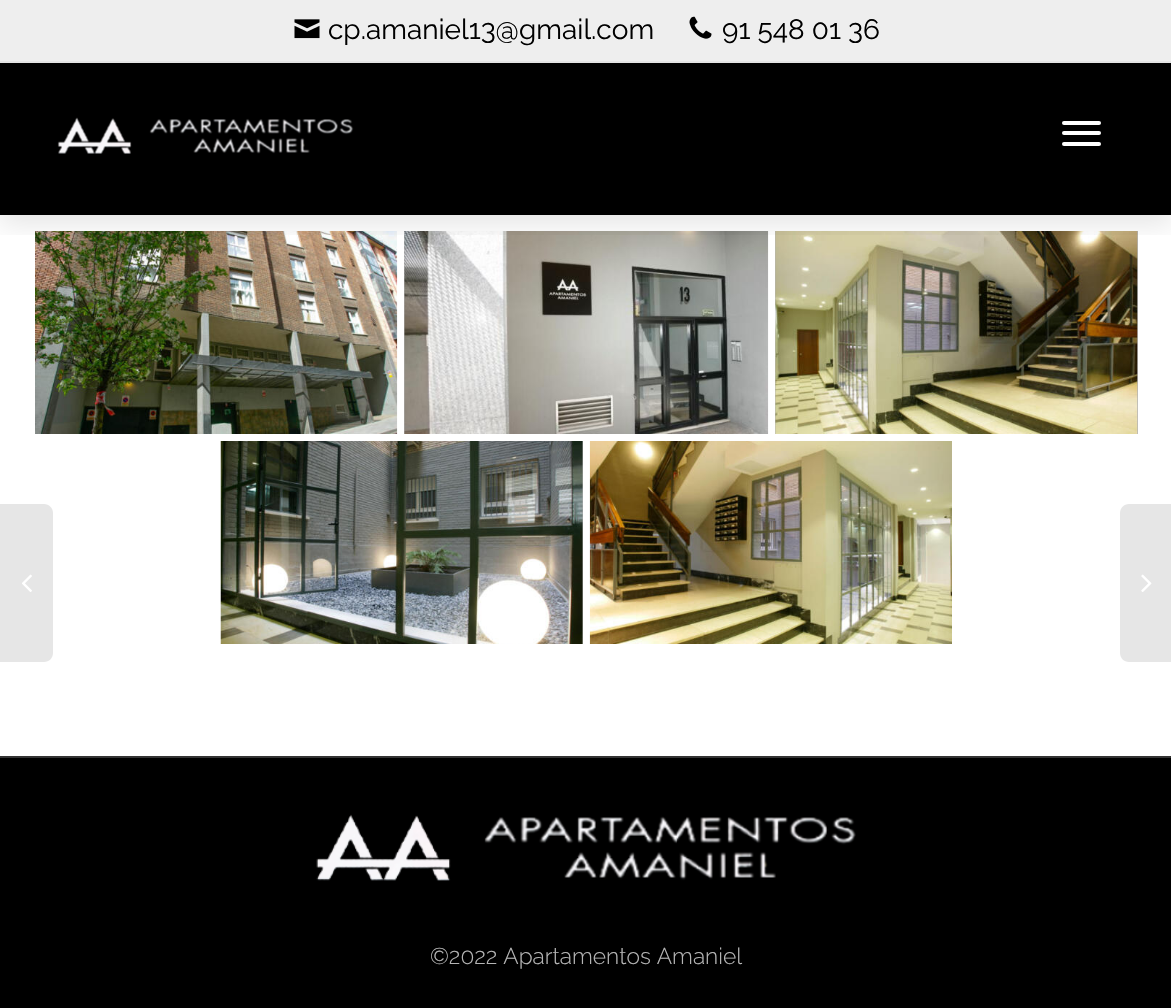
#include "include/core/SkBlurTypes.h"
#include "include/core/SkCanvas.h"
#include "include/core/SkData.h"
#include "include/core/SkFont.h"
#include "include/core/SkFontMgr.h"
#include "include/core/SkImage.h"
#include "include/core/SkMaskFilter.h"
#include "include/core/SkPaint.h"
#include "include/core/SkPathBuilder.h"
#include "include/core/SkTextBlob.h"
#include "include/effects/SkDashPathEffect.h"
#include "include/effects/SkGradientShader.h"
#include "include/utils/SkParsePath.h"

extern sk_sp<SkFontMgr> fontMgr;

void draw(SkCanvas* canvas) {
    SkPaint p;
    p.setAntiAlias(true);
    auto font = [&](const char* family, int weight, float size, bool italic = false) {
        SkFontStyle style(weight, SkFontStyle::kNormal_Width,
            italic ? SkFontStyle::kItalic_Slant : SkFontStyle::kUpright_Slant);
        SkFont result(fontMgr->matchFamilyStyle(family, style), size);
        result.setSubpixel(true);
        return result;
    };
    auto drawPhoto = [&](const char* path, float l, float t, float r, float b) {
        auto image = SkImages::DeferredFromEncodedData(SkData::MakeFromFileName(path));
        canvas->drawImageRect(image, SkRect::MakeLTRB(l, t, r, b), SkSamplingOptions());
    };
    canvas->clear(0xFFFFFFFF);
    p.setColor(0xFF000000);
    canvas->drawRect(SkRect::MakeLTRB(0, 63, 1171, 215), p);
    drawPhoto("media/4.png", 35, 231, 398, 434);
    p.setColor(0xFFB3B3B3);
    canvas->drawRect(SkRect::MakeLTRB(404, 231, 405, 434), p);
    drawPhoto("media/5.png", 404, 231, 769, 434);
    canvas->drawRect(SkRect::MakeLTRB(775, 231, 1138, 434), p);
    drawPhoto("media/6.png", 775, 231, 1138, 434);
    canvas->save();
    canvas->clipRect(SkRect::MakeLTRB(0, 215, 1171, 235));
    p.setColor(0x1A000000);
    p.setMaskFilter(SkMaskFilter::MakeBlur(kNormal_SkBlurStyle, 13));
    canvas->drawRect(SkRect::MakeLTRB(0, 70, 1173, 224), p);
    p.setMaskFilter(nullptr);
    canvas->restore();
    p.setColor(0xFFEEEEEE);
    canvas->drawRect(SkRect::MakeLTRB(0, 0, 1171, 61), p);
    p.setColor(0xFFE5E5E5);
    canvas->drawRect(SkRect::MakeLTRB(0, 61, 1171, 63), p);
    drawPhoto("media/1.png", 294, 19, 320, 39);
    auto font1 = font("Raleway", 400, 28);
    p.setColor(0xFF000000);
    canvas->drawString("cp.amaniel13@gmail.com", 328, 39, font1, p);
    drawPhoto("media/2.png", 689, 16, 712, 39);
    canvas->drawString("91 548 01 36", 722, 39, font1, p);
    drawPhoto("media/3.png", 57, 117, 354, 154);
    p.setColor(0xFFFFFFFF);
    canvas->drawRoundRect(SkRect::MakeLTRB(1062, 121, 1101, 125), 2, 2, p);
    canvas->drawRoundRect(SkRect::MakeLTRB(1062, 131, 1101, 135), 2, 2, p);
    canvas->drawRoundRect(SkRect::MakeLTRB(1062, 142, 1101, 146), 2, 2, p);
    p.setColor(0xFFB3B3B3);
    canvas->drawRect(SkRect::MakeLTRB(582, 441, 583, 644), p);
    drawPhoto("media/7.png", 220, 441, 583, 644);
    drawPhoto("media/8.png", 589, 441, 952, 644);
    p.setColor(0xFFE6E6E6);
    canvas->drawPath(SkPathBuilder().moveTo(-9, 504).lineTo(44, 504).cubicTo(49, 504, 53, 508, 53, 513).lineTo(53, 653).cubicTo(53, 658, 49, 662, 44, 662).lineTo(-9, 662).close().detach(), p);
    drawPhoto("media/9.png", 22, 574, 32, 592);
    canvas->drawPath(SkPathBuilder().moveTo(1129, 504).lineTo(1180, 504).lineTo(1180, 662).lineTo(1129, 662).cubicTo(1124, 662, 1120, 658, 1120, 653).lineTo(1120, 513).cubicTo(1120, 508, 1124, 504, 1129, 504).close().detach(), p);
    drawPhoto("media/10.png", 1141, 574, 1152, 592);
    p.setColor(0xFF000000);
    canvas->drawRect(SkRect::MakeLTRB(0, 758, 1171, 1008), p);
    p.setColor(0xFF333333);
    canvas->drawRect(SkRect::MakeLTRB(0, 756, 1171, 758), p);
    drawPhoto("media/11.png", 316, 814, 856, 881);
    auto font2 = font("Raleway", 300, 22.75f);
    p.setColor(0xFFB5B5B5);
    canvas->drawString("©2022 Apartamentos Amaniel", 430, 964, font2, p);
}
